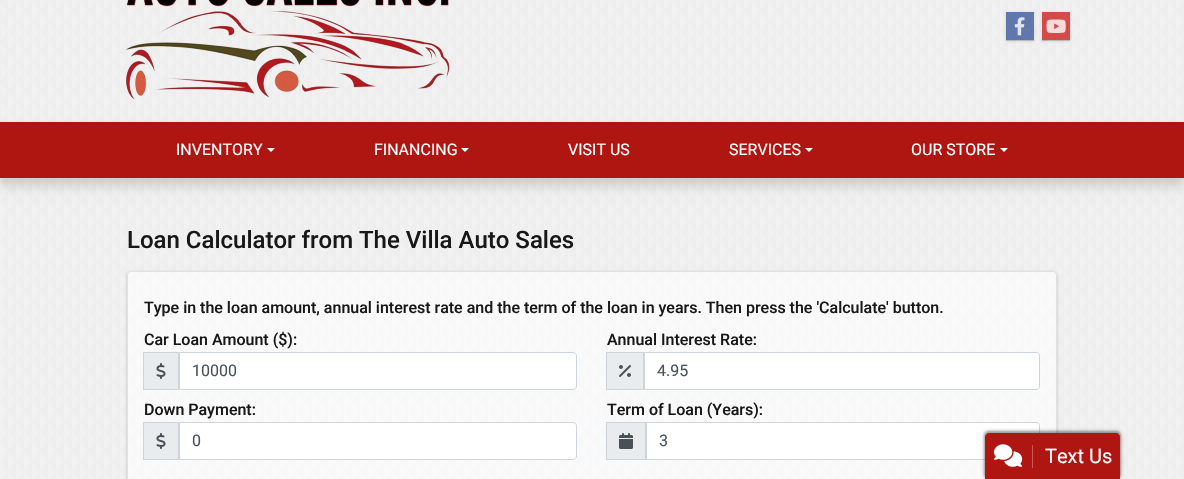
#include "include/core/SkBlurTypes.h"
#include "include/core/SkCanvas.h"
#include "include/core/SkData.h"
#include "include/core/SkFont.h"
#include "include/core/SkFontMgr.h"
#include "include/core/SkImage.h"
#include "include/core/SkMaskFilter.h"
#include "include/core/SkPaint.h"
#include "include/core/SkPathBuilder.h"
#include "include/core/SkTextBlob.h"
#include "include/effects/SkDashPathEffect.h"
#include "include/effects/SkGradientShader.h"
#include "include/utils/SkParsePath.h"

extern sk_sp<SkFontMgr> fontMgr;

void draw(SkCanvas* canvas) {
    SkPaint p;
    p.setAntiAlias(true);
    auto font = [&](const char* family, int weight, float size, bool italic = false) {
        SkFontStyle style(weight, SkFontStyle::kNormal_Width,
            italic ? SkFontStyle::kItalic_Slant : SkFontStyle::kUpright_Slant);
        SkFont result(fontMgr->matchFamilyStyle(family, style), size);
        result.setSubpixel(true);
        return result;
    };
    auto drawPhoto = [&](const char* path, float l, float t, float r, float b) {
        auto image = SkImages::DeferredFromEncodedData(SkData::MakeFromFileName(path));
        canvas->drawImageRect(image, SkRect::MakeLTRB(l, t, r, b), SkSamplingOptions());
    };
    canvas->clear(0xFFEEEEEE);
    drawPhoto("media/1.png", 1, 0, 1184, 479);
    p.setColor(0x80F3F3F3);
    canvas->drawRect(SkRect::MakeLTRB(1, 0, 1184, 122), p);
    drawPhoto("media/2.png", 126, 0, 450, 100);
    canvas->save();
    canvas->clipRect(SkRect::MakeLTRB(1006, 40, 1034, 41));
    p.setColor(0x29000000);
    p.setMaskFilter(SkMaskFilter::MakeBlur(kNormal_SkBlurStyle, 0.5f));
    canvas->drawRect(SkRect::MakeLTRB(1006, 13, 1034, 41), p);
    p.setMaskFilter(nullptr);
    canvas->restore();
    canvas->save();
    canvas->clipPath(SkPathBuilder(SkPathFillType::kEvenOdd).moveTo(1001, 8).lineTo(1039, 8).lineTo(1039, 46).lineTo(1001, 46).close().moveTo(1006, 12).lineTo(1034, 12).lineTo(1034, 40).lineTo(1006, 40).close().detach(), true);
    p.setColor(0x14000000);
    p.setMaskFilter(SkMaskFilter::MakeBlur(kNormal_SkBlurStyle, 1));
    canvas->drawRect(SkRect::MakeLTRB(1005, 12, 1035, 42), p);
    p.setMaskFilter(nullptr);
    canvas->restore();
    p.setColor(0xCC3B5998);
    canvas->drawRect(SkRect::MakeLTRB(1006, 12, 1034, 40), p);
    drawPhoto("media/3.png", 1014, 17, 1025, 36);
    canvas->save();
    canvas->clipRect(SkRect::MakeLTRB(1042, 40, 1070, 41));
    p.setColor(0x29000000);
    p.setMaskFilter(SkMaskFilter::MakeBlur(kNormal_SkBlurStyle, 0.5f));
    canvas->drawRect(SkRect::MakeLTRB(1042, 13, 1070, 41), p);
    p.setMaskFilter(nullptr);
    canvas->restore();
    canvas->save();
    canvas->clipPath(SkPathBuilder(SkPathFillType::kEvenOdd).moveTo(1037, 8).lineTo(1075, 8).lineTo(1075, 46).lineTo(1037, 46).close().moveTo(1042, 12).lineTo(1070, 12).lineTo(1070, 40).lineTo(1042, 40).close().detach(), true);
    p.setColor(0x14000000);
    p.setMaskFilter(SkMaskFilter::MakeBlur(kNormal_SkBlurStyle, 1));
    canvas->drawRect(SkRect::MakeLTRB(1041, 12, 1071, 42), p);
    p.setMaskFilter(nullptr);
    canvas->restore();
    p.setColor(0xCCCD201F);
    canvas->drawRect(SkRect::MakeLTRB(1042, 12, 1070, 40), p);
    drawPhoto("media/4.png", 1046, 19, 1066, 33);
    p.setColor(0x1A000000);
    p.setMaskFilter(SkMaskFilter::MakeBlur(kNormal_SkBlurStyle, 2.5f));
    canvas->drawRect(SkRect::MakeLTRB(0, 127, 1184, 183), p);
    p.setMaskFilter(nullptr);
    p.setColor(0x33000000);
    p.setMaskFilter(SkMaskFilter::MakeBlur(kNormal_SkBlurStyle, 5));
    canvas->drawRect(SkRect::MakeLTRB(0, 132, 1184, 188), p);
    p.setMaskFilter(nullptr);
    p.setColor(0xFFAF1611);
    canvas->drawRect(SkRect::MakeLTRB(0, 122, 1184, 178), p);
    auto font1 = font("Roboto", 400, 16);
    p.setColor(0xFFFFFFFF);
    canvas->drawString("INVENTORY", 176, 155, font1, p);
    canvas->drawPath(SkPathBuilder().moveTo(267, 148).lineTo(275, 148).lineTo(271, 152).close().detach(), p);
    canvas->drawString("FINANCING", 374, 155, font1, p);
    canvas->drawPath(SkPathBuilder().moveTo(461, 148).lineTo(469, 148).lineTo(465, 152).close().detach(), p);
    canvas->drawString("VISIT US", 568, 155, font1, p);
    canvas->drawString("SERVICES", 729, 155, font1, p);
    canvas->drawPath(SkPathBuilder().moveTo(805, 148).lineTo(813, 148).lineTo(809, 152).close().detach(), p);
    canvas->drawString("OUR STORE", 911, 155, font1, p);
    canvas->drawPath(SkPathBuilder().moveTo(1000, 148).lineTo(1008, 148).lineTo(1004, 152).close().detach(), p);
    p.setColor(0x80F3F3F3);
    canvas->drawRect(SkRect::MakeLTRB(0, 178, 1184, 479), p);
    auto font2 = font("Roboto", 500, 24);
    p.setColor(0xFF181818);
    canvas->drawString("Loan Calculator from The Villa Auto Sales", 127, 248, font2, p);
    canvas->save();
    canvas->clipPath(SkPathBuilder(SkPathFillType::kEvenOdd).moveTo(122, 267).lineTo(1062, 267).lineTo(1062, 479).lineTo(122, 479).close().moveTo(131, 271).lineTo(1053, 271).cubicTo(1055, 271, 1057, 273, 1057, 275).lineTo(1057, 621).cubicTo(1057, 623, 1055, 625, 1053, 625).lineTo(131, 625).cubicTo(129, 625, 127, 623, 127, 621).lineTo(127, 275).cubicTo(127, 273, 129, 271, 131, 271).close().detach(), true);
    p.setColor(0x1A000000);
    p.setMaskFilter(SkMaskFilter::MakeBlur(kNormal_SkBlurStyle, 1));
    canvas->drawRoundRect(SkRect::MakeLTRB(126, 271, 1058, 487), 5, 5, p);
    p.setMaskFilter(nullptr);
    canvas->restore();
    p.setColor(0x99FFFFFF);
    canvas->drawRoundRect(SkRect::MakeLTRB(127.5f, 271.5f, 1056.5f, 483.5f), 3.5f, 3.5f, p);
    p.setStyle(SkPaint::kStroke_Style);
    p.setStrokeWidth(1);
    p.setColor(0xFFE1E1E1);
    canvas->drawRoundRect(SkRect::MakeLTRB(127.5f, 271.5f, 1056.5f, 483.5f), 3.5f, 3.5f, p);
    auto font3 = font("Roboto", 500, 16);
    p.setStyle(SkPaint::kFill_Style);
    p.setColor(0xFF181818);
    canvas->drawString("Type in the loan amount, annual interest rate and the term of the loan in years. Then press the 'Calculate' button.", 144, 313, font3, p);
    canvas->drawString("Car Loan Amount ($):", 144, 345, font3, p);
    p.setColor(0xFFE9ECEF);
    canvas->drawRect(SkRect::MakeLTRB(143.5f, 352.5f, 178.5f, 389.5f), p);
    p.setStyle(SkPaint::kStroke_Style);
    p.setColor(0xFFCED4DA);
    canvas->drawRect(SkRect::MakeLTRB(143.5f, 352.5f, 178.5f, 389.5f), p);
    drawPhoto("media/5.png", 156, 363, 166, 379);
    p.setStyle(SkPaint::kFill_Style);
    p.setColor(0xFFFFFFFF);
    canvas->drawPath(SkPathBuilder().moveTo(179.5f, 352.5f).lineTo(573, 352.5f).cubicTo(575, 352.5f, 576.5f, 354, 576.5f, 356).lineTo(576.5f, 386).cubicTo(576.5f, 388, 575, 389.5f, 573, 389.5f).lineTo(179.5f, 389.5f).close().detach(), p);
    p.setStyle(SkPaint::kStroke_Style);
    p.setColor(0xFFCED4DA);
    canvas->drawPath(SkPathBuilder().moveTo(179.5f, 352.5f).lineTo(573, 352.5f).cubicTo(575, 352.5f, 576.5f, 354, 576.5f, 356).lineTo(576.5f, 386).cubicTo(576.5f, 388, 575, 389.5f, 573, 389.5f).lineTo(179.5f, 389.5f).close().detach(), p);
    p.setStyle(SkPaint::kFill_Style);
    p.setColor(0xFF495057);
    canvas->drawString("10000", 192, 376, font1, p);
    p.setColor(0xFF181818);
    canvas->drawString("Down Payment:", 144, 415, font3, p);
    p.setColor(0xFFE9ECEF);
    canvas->drawRect(SkRect::MakeLTRB(143.5f, 422.5f, 178.5f, 459.5f), p);
    p.setStyle(SkPaint::kStroke_Style);
    p.setColor(0xFFCED4DA);
    canvas->drawRect(SkRect::MakeLTRB(143.5f, 422.5f, 178.5f, 459.5f), p);
    drawPhoto("media/5.png", 156, 433, 166, 449);
    p.setStyle(SkPaint::kFill_Style);
    p.setColor(0xFFFFFFFF);
    canvas->drawPath(SkPathBuilder().moveTo(179.5f, 422.5f).lineTo(573, 422.5f).cubicTo(575, 422.5f, 576.5f, 424, 576.5f, 426).lineTo(576.5f, 456).cubicTo(576.5f, 458, 575, 459.5f, 573, 459.5f).lineTo(179.5f, 459.5f).close().detach(), p);
    p.setStyle(SkPaint::kStroke_Style);
    p.setColor(0xFFCED4DA);
    canvas->drawPath(SkPathBuilder().moveTo(179.5f, 422.5f).lineTo(573, 422.5f).cubicTo(575, 422.5f, 576.5f, 424, 576.5f, 426).lineTo(576.5f, 456).cubicTo(576.5f, 458, 575, 459.5f, 573, 459.5f).lineTo(179.5f, 459.5f).close().detach(), p);
    p.setStyle(SkPaint::kFill_Style);
    p.setColor(0xFF495057);
    canvas->drawString("0", 192, 446, font1, p);
    p.setColor(0xFF181818);
    canvas->drawString("Annual Interest Rate:", 607, 345, font3, p);
    p.setColor(0xFFE9ECEF);
    canvas->drawRect(SkRect::MakeLTRB(606.5f, 352.5f, 643.5f, 389.5f), p);
    p.setStyle(SkPaint::kStroke_Style);
    p.setColor(0xFFCED4DA);
    canvas->drawRect(SkRect::MakeLTRB(606.5f, 352.5f, 643.5f, 389.5f), p);
    drawPhoto("media/6.png", 619, 365, 631, 377);
    p.setStyle(SkPaint::kFill_Style);
    p.setColor(0xFFFFFFFF);
    canvas->drawPath(SkPathBuilder().moveTo(644.5f, 352.5f).lineTo(1036, 352.5f).cubicTo(1038, 352.5f, 1039.5f, 354, 1039.5f, 356).lineTo(1039.5f, 386).cubicTo(1039.5f, 388, 1038, 389.5f, 1036, 389.5f).lineTo(644.5f, 389.5f).close().detach(), p);
    p.setStyle(SkPaint::kStroke_Style);
    p.setColor(0xFFCED4DA);
    canvas->drawPath(SkPathBuilder().moveTo(644.5f, 352.5f).lineTo(1036, 352.5f).cubicTo(1038, 352.5f, 1039.5f, 354, 1039.5f, 356).lineTo(1039.5f, 386).cubicTo(1039.5f, 388, 1038, 389.5f, 1036, 389.5f).lineTo(644.5f, 389.5f).close().detach(), p);
    p.setStyle(SkPaint::kFill_Style);
    p.setColor(0xFF495057);
    canvas->drawString("4.95", 657, 376, font1, p);
    p.setColor(0xFF181818);
    canvas->drawString("Term of Loan (Years):", 607, 415, font3, p);
    p.setColor(0xFFE9ECEF);
    canvas->drawRect(SkRect::MakeLTRB(606.5f, 422.5f, 645.5f, 459.5f), p);
    p.setStyle(SkPaint::kStroke_Style);
    p.setColor(0xFFCED4DA);
    canvas->drawRect(SkRect::MakeLTRB(606.5f, 422.5f, 645.5f, 459.5f), p);
    drawPhoto("media/7.png", 619, 433, 633, 449);
    p.setStyle(SkPaint::kFill_Style);
    p.setColor(0xFFFFFFFF);
    canvas->drawPath(SkPathBuilder().moveTo(646.5f, 422.5f).lineTo(1036, 422.5f).cubicTo(1038, 422.5f, 1039.5f, 424, 1039.5f, 426).lineTo(1039.5f, 456).cubicTo(1039.5f, 458, 1038, 459.5f, 1036, 459.5f).lineTo(646.5f, 459.5f).close().detach(), p);
    p.setStyle(SkPaint::kStroke_Style);
    p.setColor(0xFFCED4DA);
    canvas->drawPath(SkPathBuilder().moveTo(646.5f, 422.5f).lineTo(1036, 422.5f).cubicTo(1038, 422.5f, 1039.5f, 424, 1039.5f, 426).lineTo(1039.5f, 456).cubicTo(1039.5f, 458, 1038, 459.5f, 1036, 459.5f).lineTo(646.5f, 459.5f).close().detach(), p);
    p.setStyle(SkPaint::kFill_Style);
    p.setColor(0xFF495057);
    canvas->drawString("3", 659, 446, font1, p);
    p.setColor(0x40000000);
    p.setMaskFilter(SkMaskFilter::MakeBlur(kNormal_SkBlurStyle, 1));
    canvas->drawRoundRect(SkRect::MakeLTRB(984, 431, 1121, 479), 5, 5, p);
    p.setMaskFilter(nullptr);
    p.setColor(0x26000000);
    p.setMaskFilter(SkMaskFilter::MakeBlur(kNormal_SkBlurStyle, 1.5f));
    canvas->drawRoundRect(SkRect::MakeLTRB(983, 430, 1122, 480), 6, 6, p);
    p.setMaskFilter(nullptr);
    p.setColor(0xFFAF1611);
    canvas->drawPath(SkPathBuilder().moveTo(989, 433).lineTo(1116, 433).cubicTo(1118, 433, 1120, 435, 1120, 437).lineTo(1120, 479).lineTo(985, 479).lineTo(985, 437).cubicTo(985, 435, 987, 433, 989, 433).close().detach(), p);
    p.setColor(0xFFC75C58);
    canvas->drawRect(SkRect::MakeLTRB(1032, 445, 1033, 468), p);
    drawPhoto("media/8.png", 994, 444, 1023, 467);
    auto font4 = font("Roboto", 400, 20);
    p.setColor(0xFFFFFFFF);
    canvas->drawString("Text Us", 1045, 463, font4, p);
}
